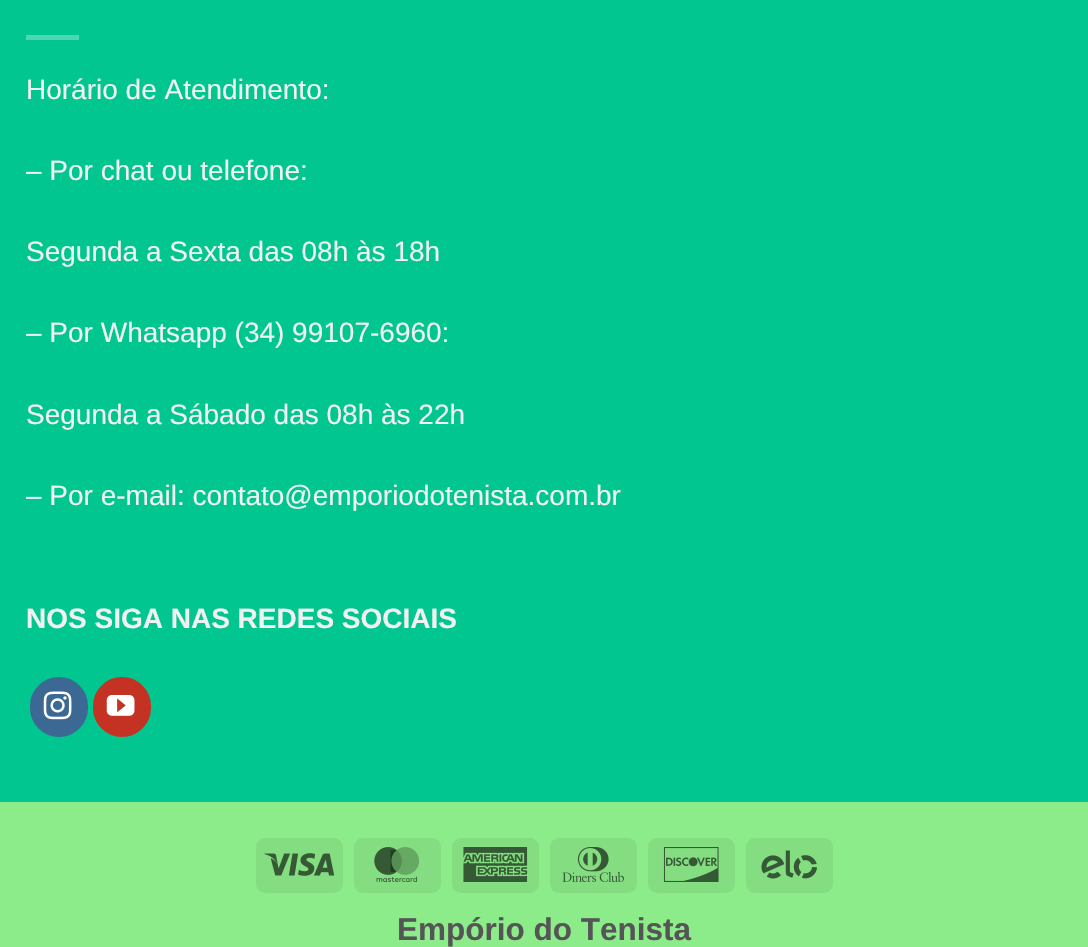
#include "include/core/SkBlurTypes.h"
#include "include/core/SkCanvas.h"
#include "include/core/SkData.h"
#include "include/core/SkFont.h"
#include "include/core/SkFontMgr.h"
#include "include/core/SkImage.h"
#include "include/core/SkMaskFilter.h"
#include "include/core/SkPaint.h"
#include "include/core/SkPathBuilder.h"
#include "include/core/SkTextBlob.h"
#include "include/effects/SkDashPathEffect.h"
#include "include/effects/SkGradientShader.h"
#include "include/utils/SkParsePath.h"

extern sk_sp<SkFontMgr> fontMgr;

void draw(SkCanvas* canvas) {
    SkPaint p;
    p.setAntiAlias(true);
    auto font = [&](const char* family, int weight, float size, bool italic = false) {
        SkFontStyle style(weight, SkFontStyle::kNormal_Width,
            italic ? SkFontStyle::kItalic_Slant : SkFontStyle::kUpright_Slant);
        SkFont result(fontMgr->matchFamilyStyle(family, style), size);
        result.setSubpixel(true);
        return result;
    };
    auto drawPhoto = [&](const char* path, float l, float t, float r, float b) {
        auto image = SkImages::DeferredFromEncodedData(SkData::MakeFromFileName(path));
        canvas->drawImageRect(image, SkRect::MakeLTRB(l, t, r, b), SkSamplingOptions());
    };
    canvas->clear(0xFF01C690);
    p.setColor(0xFF4DD7B1);
    canvas->drawRect(SkRect::MakeLTRB(26, 35, 79, 40), p);
    auto font1 = font("Liberation Sans", 400, 28);
    p.setColor(0xFFF1F1F1);
    {
        const struct { const char* s; float x, y; } items[] = {
            {"Horário de Atendimento:", 26, 99},
            {"– Por chat ou telefone:", 26, 180},
            {"Segunda a Sexta das 08h às 18h", 26, 261},
            {"– Por Whatsapp (34) 99107-6960:", 26, 342},
            {"Segunda a Sábado das 08h às 22h", 26, 424},
            {"– Por e-mail: contato@emporiodotenista.com.br", 26, 505},
        };
        for (auto [s, x, y] : items) {
            canvas->drawString(s, x, y, font1, p);
        }
    }
    auto font2 = font("Liberation Sans", 700, 28);
    canvas->drawString("NOS SIGA NAS REDES SOCIAIS", 26, 628, font2, p);
    p.setColor(0xFF3B6994);
    canvas->drawRoundRect(SkRect::MakeLTRB(31, 678, 87, 736), 28, 28, p);
    p.setStyle(SkPaint::kStroke_Style);
    p.setStrokeWidth(2);
    canvas->drawRoundRect(SkRect::MakeLTRB(31, 678, 87, 736), 28, 28, p);
    drawPhoto("media/1.png", 43, 691, 72, 720);
    p.setStyle(SkPaint::kFill_Style);
    p.setColor(0xFFC33223);
    canvas->drawRoundRect(SkRect::MakeLTRB(94, 678, 150, 736), 28, 28, p);
    p.setStyle(SkPaint::kStroke_Style);
    canvas->drawRoundRect(SkRect::MakeLTRB(94, 678, 150, 736), 28, 28, p);
    drawPhoto("media/2.png", 106, 695, 135, 716);
    p.setStyle(SkPaint::kFill_Style);
    p.setColor(0xFF8CEC89);
    canvas->drawRect(SkRect::MakeLTRB(0, 802, 1088, 947), p);
    p.setColor(0xFF84DE81);
    canvas->drawRoundRect(SkRect::MakeLTRB(256, 838, 343, 893), 9, 9, p);
    drawPhoto("media/3.png", 264, 853, 334, 876);
    canvas->drawRoundRect(SkRect::MakeLTRB(354, 838, 441, 893), 9, 9, p);
    drawPhoto("media/4.png", 374, 847, 419, 882);
    canvas->drawRoundRect(SkRect::MakeLTRB(452, 838, 539, 893), 9, 9, p);
    drawPhoto("media/5.png", 463, 847, 528, 882);
    canvas->drawRoundRect(SkRect::MakeLTRB(550, 838, 637, 893), 9, 9, p);
    drawPhoto("media/6.png", 562, 847, 624, 882);
    canvas->drawRoundRect(SkRect::MakeLTRB(648, 838, 735, 893), 9, 9, p);
    drawPhoto("media/7.png", 663, 847, 719, 882);
    canvas->drawRoundRect(SkRect::MakeLTRB(746, 838, 833, 893), 9, 9, p);
    drawPhoto("media/8.png", 761, 850, 817, 879);
    auto font3 = font("Liberation Sans", 700, 31.5f);
    p.setColor(0xFF555555);
    canvas->drawString("Empório do Tenista", 397, 940, font3, p);
}
